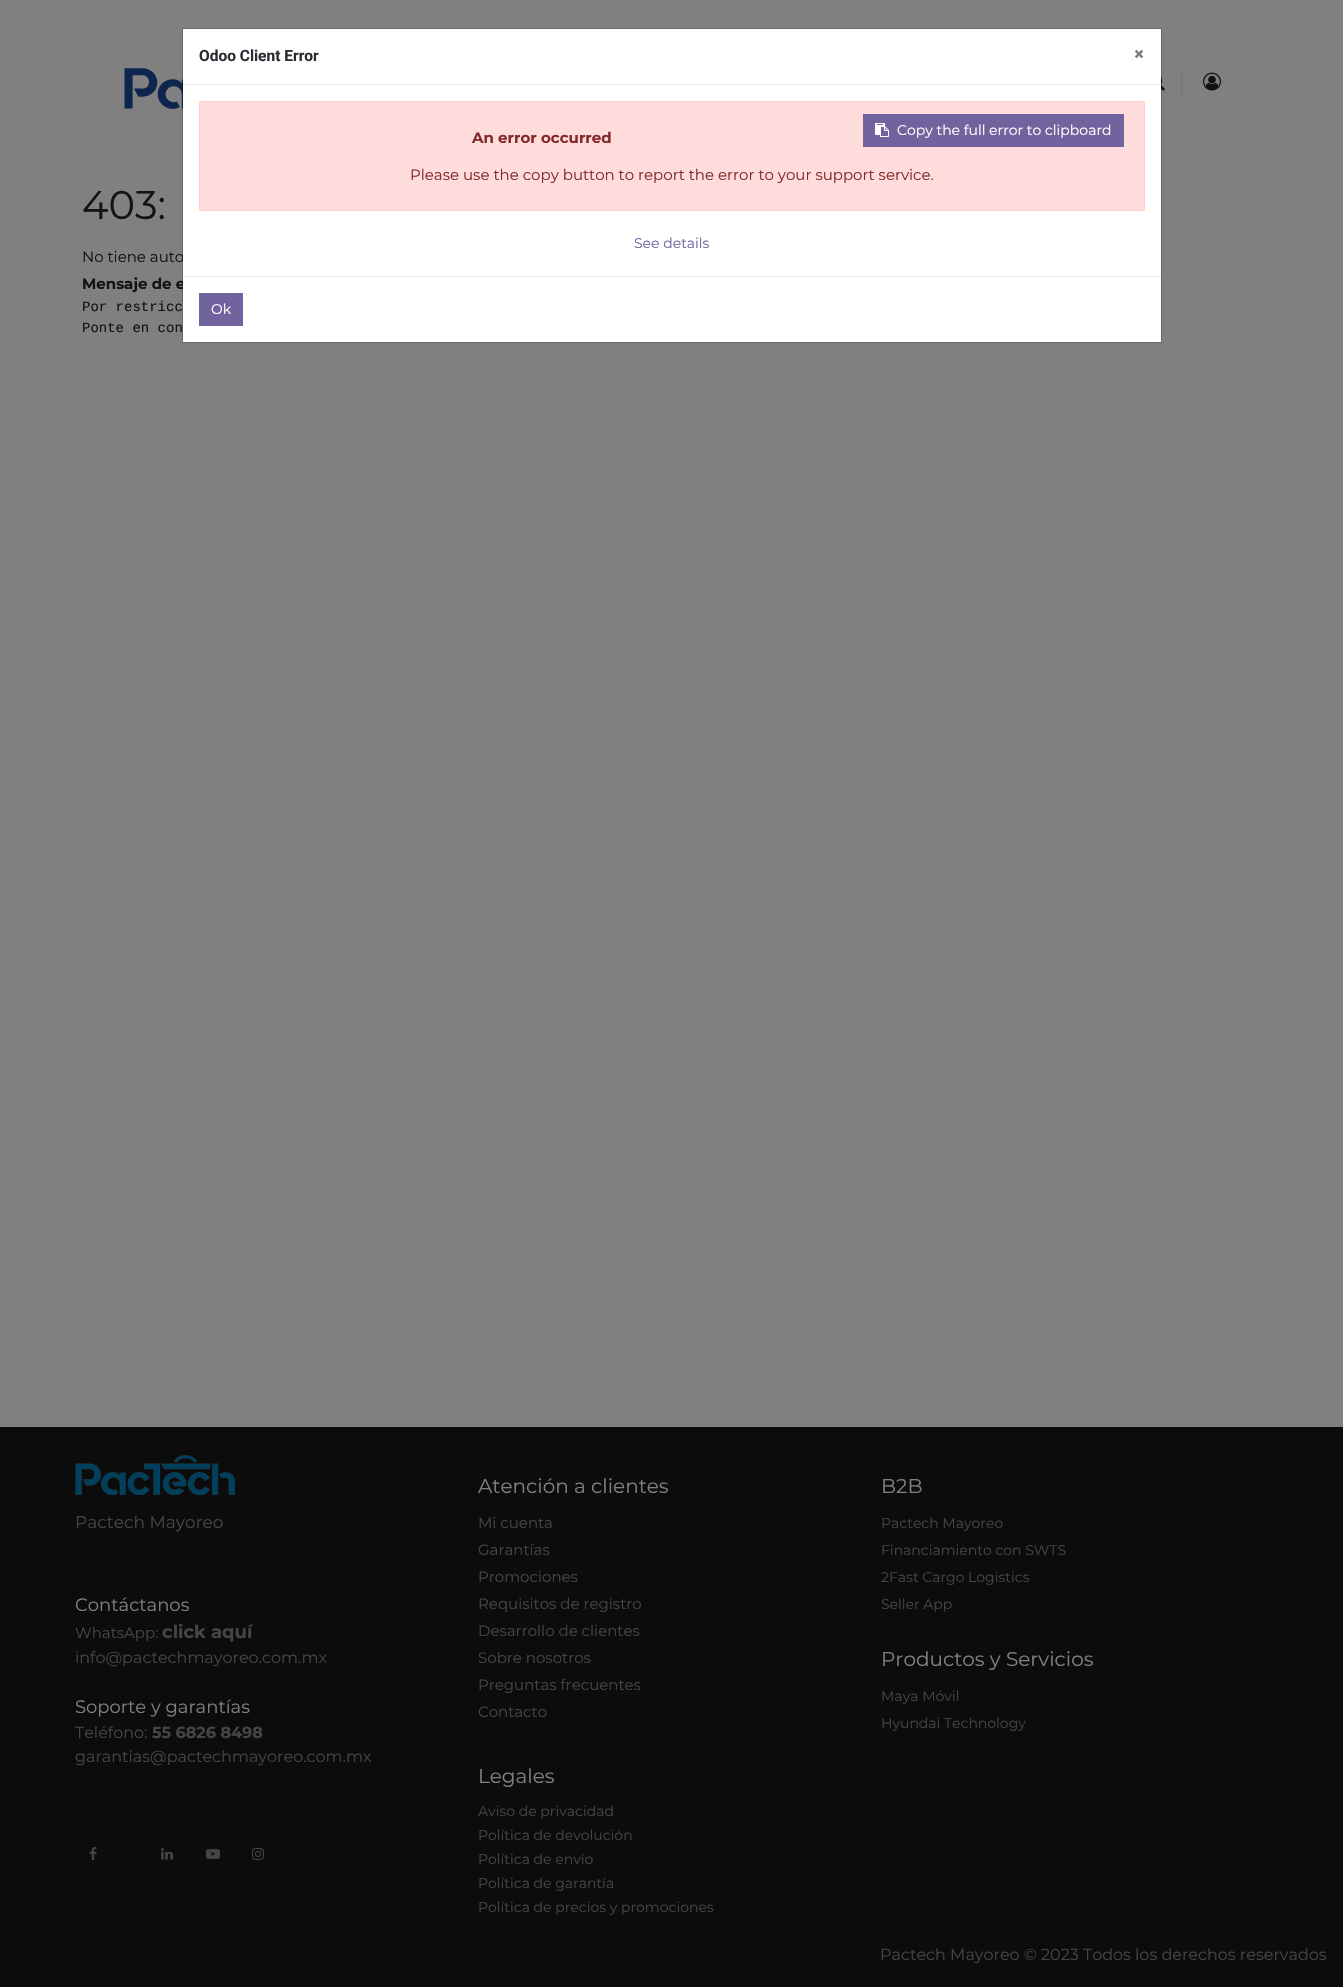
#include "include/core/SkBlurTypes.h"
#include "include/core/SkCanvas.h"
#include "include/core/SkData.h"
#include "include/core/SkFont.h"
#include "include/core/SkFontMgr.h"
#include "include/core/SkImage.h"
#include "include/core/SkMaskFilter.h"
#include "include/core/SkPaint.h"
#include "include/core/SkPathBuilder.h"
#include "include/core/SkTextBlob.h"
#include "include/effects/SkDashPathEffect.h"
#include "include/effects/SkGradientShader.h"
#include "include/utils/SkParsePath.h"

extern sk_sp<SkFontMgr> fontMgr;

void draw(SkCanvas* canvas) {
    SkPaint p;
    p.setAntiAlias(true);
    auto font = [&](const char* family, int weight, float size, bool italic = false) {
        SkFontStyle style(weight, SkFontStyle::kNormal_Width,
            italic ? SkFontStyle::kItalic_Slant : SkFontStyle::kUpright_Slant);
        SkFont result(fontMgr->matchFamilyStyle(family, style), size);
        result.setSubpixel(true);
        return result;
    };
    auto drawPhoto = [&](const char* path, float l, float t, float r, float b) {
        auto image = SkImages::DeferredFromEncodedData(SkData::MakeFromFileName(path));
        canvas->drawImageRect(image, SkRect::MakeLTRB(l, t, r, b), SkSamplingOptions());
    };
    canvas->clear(0xFF808080);
    auto font1 = font("Montserrat", 400, 15);
    p.setColor(0xFF111315);
    canvas->drawString("No tiene auto", 82, 262, font1, p);
    auto font2 = font("Montserrat", 700, 15);
    canvas->drawString("Mensaje de e", 82, 289, font2, p);
    p.setColor(0xFFFFFFFF);
    canvas->drawRect(SkRect::MakeLTRB(183, 29, 1161, 342), p);
    drawPhoto("media/2.png", 124, 68, 183, 109);
    drawPhoto("media/3.png", 1161, 77, 1165, 91);
    p.setStyle(SkPaint::kStroke_Style);
    p.setStrokeWidth(1);
    p.setColor(0x33000000);
    canvas->drawRect(SkRect::MakeLTRB(182.5f, 28.5f, 1161.5f, 342.5f), p);
    p.setStyle(SkPaint::kFill_Style);
    p.setColor(0xFFE9ECEF);
    canvas->drawRect(SkRect::MakeLTRB(183, 84, 1161, 85), p);
    auto font3 = font("Roboto", 700, 15.5f);
    p.setColor(0xFF2B2B33);
    canvas->drawString("Odoo Client Error", 199, 61, font3, p);
    auto font4 = font("Montserrat", 700, 20);
    p.setColor(0xFF808080);
    canvas->drawString("×", 1133, 61, font4, p);
    p.setColor(0xFFFFDCDC);
    canvas->drawRect(SkRect::MakeLTRB(199.5f, 101.5f, 1144.5f, 210.5f), p);
    p.setStyle(SkPaint::kStroke_Style);
    p.setColor(0xFFFFCECE);
    canvas->drawRect(SkRect::MakeLTRB(199.5f, 101.5f, 1144.5f, 210.5f), p);
    p.setStyle(SkPaint::kFill_Style);
    p.setColor(0xFF852A2A);
    canvas->drawString("An error occurred", 472, 143, font2, p);
    p.setColor(0xFF71639E);
    canvas->drawRect(SkRect::MakeLTRB(863, 114, 1124, 147), p);
    drawPhoto("media/1.png", 875, 123, 889, 137);
    auto font5 = font("Montserrat", 400, 14);
    p.setColor(0xFFFFFFFF);
    canvas->drawString("Copy the full error to clipboard", 897, 135, font5, p);
    p.setColor(0xFF852A2A);
    canvas->drawString("Please use the copy button to report the error to your support service.", 410, 180, font1, p);
    p.setColor(0xFF71639E);
    canvas->drawString("See details", 634, 248, font5, p);
    p.setColor(0xFFE9ECEF);
    canvas->drawRect(SkRect::MakeLTRB(183, 276, 1161, 277), p);
    p.setColor(0xFF71639E);
    canvas->drawRect(SkRect::MakeLTRB(199, 293, 243, 326), p);
    p.setColor(0xFFFFFFFF);
    canvas->drawString("Ok", 211, 314, font5, p);
    p.setColor(0xFF767676);
    canvas->drawRect(SkRect::MakeLTRB(1181, 72, 1182, 96), p);
    drawPhoto("media/4.png", 1203, 72, 1221, 91);
    auto font6 = font("Montserrat", 400, 40);
    p.setColor(0xFF111315);
    canvas->drawString("403:", 82, 219, font6, p);
    auto font7 = font("Liberation Mono", 400, 14);
    canvas->drawString("Por restricc", 82, 311, font7, p);
    canvas->drawString("Ponte en con", 82, 332, font7, p);
    p.setColor(0xFF0C0C0C);
    canvas->drawRect(SkRect::MakeLTRB(0, 1427, 1343, 1987), p);
    drawPhoto("media/5.png", 75, 1455, 235, 1495);
    auto font8 = font("Montserrat", 400, 17);
    p.setColor(0xFF464444);
    canvas->drawString("Pactech Mayoreo", 75, 1528, font8, p);
    auto font9 = font("Montserrat", 400, 18);
    p.setColor(0xFF808080);
    canvas->drawString("Contáctanos", 75, 1611, font9, p);
    p.setColor(0xFF464444);
    canvas->drawString("WhatsApp:", 75, 1638, font1, p);
    auto font10 = font("Montserrat", 700, 18);
    canvas->drawString("click aquí", 162, 1638, font10, p);
    auto font11 = font("Montserrat", 400, 16);
    canvas->drawString("info@pactechmayoreo.com.mx", 75, 1663, font11, p);
    p.setColor(0xFF808080);
    canvas->drawString("Soporte y garantías", 75, 1713, font9, p);
    p.setColor(0xFF464444);
    canvas->drawString("Teléfono:", 75, 1738, font11, p);
    auto font12 = font("Montserrat", 700, 16);
    canvas->drawString("55 6826 8498", 152, 1738, font12, p);
    canvas->drawString("garantias@pactechmayoreo.com.mx", 75, 1762, font11, p);
    drawPhoto("media/6.png", 89, 1847, 97, 1860);
    drawPhoto("media/7.png", 161, 1848, 173, 1860);
    drawPhoto("media/8.png", 206, 1849, 220, 1859);
    drawPhoto("media/9.png", 252, 1848, 264, 1860);
    auto font13 = font("Montserrat", 400, 20);
    p.setColor(0xFF808080);
    canvas->drawString("Atención a clientes", 478, 1493, font13, p);
    p.setColor(0xFF464444);
    {
        const struct { const char* s; float x, y; } items[] = {
            {"Mi cuenta", 478, 1528},
            {"Garantías", 478, 1555},
            {"Promociones", 478, 1582},
            {"Requisitos de registro", 478, 1609},
            {"Desarrollo de clientes", 478, 1636},
            {"Sobre nosotros", 478, 1663},
            {"Preguntas frecuentes", 478, 1690},
            {"Contacto", 478, 1717},
        };
        for (auto [s, x, y] : items) {
            canvas->drawString(s, x, y, font1, p);
        }
    }
    p.setColor(0xFF808080);
    canvas->drawString("Legales", 478, 1783, font13, p);
    p.setColor(0xFF464444);
    {
        const struct { const char* s; float x, y; } items[] = {
            {"Aviso de privacidad", 478, 1816},
            {"Política de devolución", 478, 1840},
            {"Política de envío", 478, 1864},
            {"Política de garantía", 478, 1888},
            {"Política de precios y promociones", 478, 1912},
        };
        for (auto [s, x, y] : items) {
            canvas->drawString(s, x, y, font5, p);
        }
    }
    p.setColor(0xFF808080);
    canvas->drawString("B2B", 881, 1493, font13, p);
    p.setColor(0xFF464444);
    {
        const struct { const char* s; float x, y; } items[] = {
            {"Pactech Mayoreo", 881, 1528},
            {"Financiamiento con SWTS", 881, 1555},
            {"2Fast Cargo Logistics", 881, 1582},
            {"Seller App", 881, 1609},
        };
        for (auto [s, x, y] : items) {
            canvas->drawString(s, x, y, font5, p);
        }
    }
    p.setColor(0xFF808080);
    canvas->drawString("Productos y Servicios", 881, 1666, font13, p);
    p.setColor(0xFF464444);
    canvas->drawString("Maya Móvil", 881, 1701, font5, p);
    canvas->drawString("Hyundai Technology", 881, 1728, font5, p);
    canvas->drawString("Pactech Mayoreo © 2023 Todos los derechos reservados", 880, 1960, font11, p);
}
